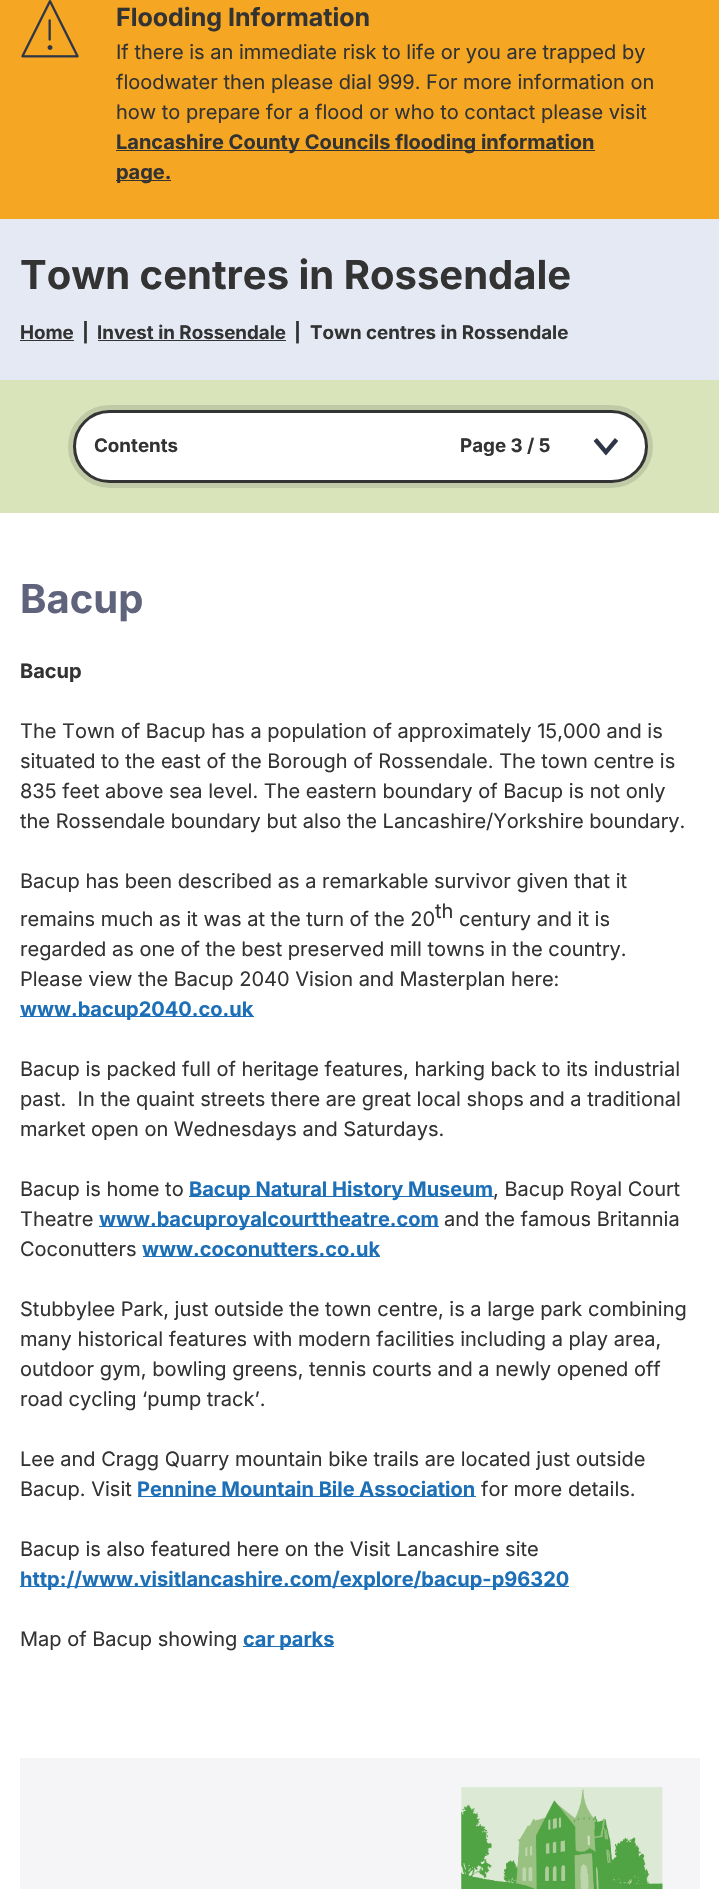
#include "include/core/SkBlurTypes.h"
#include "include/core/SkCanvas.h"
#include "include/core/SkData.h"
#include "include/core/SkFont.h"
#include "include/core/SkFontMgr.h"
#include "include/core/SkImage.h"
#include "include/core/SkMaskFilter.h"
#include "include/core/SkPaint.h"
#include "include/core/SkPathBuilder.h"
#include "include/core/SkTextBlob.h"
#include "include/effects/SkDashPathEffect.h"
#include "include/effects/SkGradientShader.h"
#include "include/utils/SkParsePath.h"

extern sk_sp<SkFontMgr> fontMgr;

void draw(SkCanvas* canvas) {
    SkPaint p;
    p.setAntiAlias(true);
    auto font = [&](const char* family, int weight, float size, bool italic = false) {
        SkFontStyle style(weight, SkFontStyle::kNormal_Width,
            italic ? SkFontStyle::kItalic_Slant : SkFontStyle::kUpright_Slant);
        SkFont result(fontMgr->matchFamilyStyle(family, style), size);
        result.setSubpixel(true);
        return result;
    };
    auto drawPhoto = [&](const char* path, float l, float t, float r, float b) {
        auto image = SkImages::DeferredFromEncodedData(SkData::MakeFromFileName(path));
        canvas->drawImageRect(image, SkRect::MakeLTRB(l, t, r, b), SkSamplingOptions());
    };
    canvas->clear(0xFFFFFFFF);
    p.setColor(0xFFF5A623);
    canvas->drawRect(SkRect::MakeLTRB(0, 0, 719, 219), p);
    drawPhoto("media/1.png", 21, 0, 79, 58);
    auto font1 = font("Inter", 700, 25);
    p.setColor(0xFF333333);
    canvas->drawString("Flooding Information", 116, 26, font1, p);
    auto font2 = font("Inter", 400, 20);
    {
        const struct { const char* s; float x, y; } items[] = {
            {"If there is an immediate risk to life or you are trapped by", 116, 59},
            {"floodwater then please dial 999. For more information on", 116, 89},
            {"how to prepare for a flood or who to contact please visit", 116, 119},
        };
        for (auto [s, x, y] : items) {
            canvas->drawString(s, x, y, font2, p);
        }
    }
    canvas->drawRect(SkRect::MakeLTRB(116, 150, 595, 151), p);
    auto font3 = font("Inter", 700, 20);
    canvas->drawString("Lancashire County Councils flooding information", 116, 149, font3, p);
    canvas->drawRect(SkRect::MakeLTRB(116, 180, 171, 181), p);
    canvas->drawString("page.", 116, 179, font3, p);
    p.setColor(0xFFE4E9F4);
    canvas->drawRect(SkRect::MakeLTRB(0, 219, 719, 380), p);
    auto font4 = font("Inter", 700, 40);
    p.setColor(0xFF333333);
    canvas->drawString("Town centres in Rossendale", 20, 289, font4, p);
    auto font5 = font("Inter", 700, 18.75f);
    canvas->drawString("Home", 20, 339, font5, p);
    canvas->drawRect(SkRect::MakeLTRB(20, 340, 74, 341), p);
    canvas->drawString("|", 82, 339, font5, p);
    canvas->drawString("Invest in Rossendale", 97, 339, font5, p);
    canvas->drawRect(SkRect::MakeLTRB(98, 340, 286, 341), p);
    canvas->drawString("|", 294, 339, font5, p);
    canvas->drawString("Town centres in Rossendale", 310, 339, font5, p);
    p.setColor(0xFFD9E4BB);
    canvas->drawRect(SkRect::MakeLTRB(0, 380, 719, 513), p);
    p.setColor(0xFFFFFFFF);
    canvas->drawRoundRect(SkRect::MakeLTRB(74.5f, 411.5f, 646.5f, 481.5f), 35, 35, p);
    p.setStyle(SkPaint::kStroke_Style);
    p.setStrokeWidth(3);
    p.setColor(0xFF333333);
    canvas->drawRoundRect(SkRect::MakeLTRB(74.5f, 411.5f, 646.5f, 481.5f), 35, 35, p);
    p.setStrokeWidth(8);
    p.setColor(0x26333333);
    canvas->drawRoundRect(SkRect::MakeLTRB(72, 409, 649, 484), 37.5f, 37.5f, p);
    p.setStyle(SkPaint::kFill_Style);
    p.setColor(0xFF333333);
    canvas->drawString("Contents", 94, 452, font5, p);
    canvas->drawString("Page 3 / 5", 460, 452, font5, p);
    drawPhoto("media/2.png", 593, 438, 618, 456);
    p.setColor(0xFF5F647C);
    canvas->drawString("Bacup", 20, 613, font4, p);
    p.setColor(0xFF333333);
    canvas->drawString("Bacup", 20, 678, font3, p);
    {
        const struct { const char* s; float x, y; } items[] = {
            {"The Town of Bacup has a population of approximately 15,000 and is", 20, 738},
            {"situated to the east of the Borough of Rossendale. The town centre is", 20, 768},
            {"835 feet above sea level. The eastern boundary of Bacup is not only", 20, 798},
            {"the Rossendale boundary but also the Lancashire/Yorkshire boundary.", 20, 828},
            {"Bacup has been described as a remarkable survivor given that it", 20, 888},
            {"remains much as it was at the turn of the 20", 20, 926},
            {"th", 435, 918},
            {"century and it is", 459, 926},
            {"regarded as one of the best preserved mill towns in the country.", 20, 956},
            {"Please view the Bacup 2040 Vision and Masterplan here:", 20, 986},
        };
        for (auto [s, x, y] : items) {
            canvas->drawString(s, x, y, font2, p);
        }
    }
    p.setColor(0xFF1D70B8);
    canvas->drawRect(SkRect::MakeLTRB(20, 1016, 254, 1017), p);
    canvas->drawString("www.bacup2040.co.uk", 20, 1016, font3, p);
    p.setColor(0xFF333333);
    {
        const struct { const char* s; float x, y; } items[] = {
            {"Bacup is packed full of heritage features, harking back to its industrial", 20, 1076},
            {"past.  In the quaint streets there are great local shops and a traditional", 20, 1106},
            {"market open on Wednesdays and Saturdays.", 20, 1136},
            {"Bacup is home to", 20, 1196},
        };
        for (auto [s, x, y] : items) {
            canvas->drawString(s, x, y, font2, p);
        }
    }
    p.setColor(0xFF1D70B8);
    canvas->drawRect(SkRect::MakeLTRB(189, 1196, 494, 1197), p);
    canvas->drawString("Bacup Natural History Museum", 189, 1196, font3, p);
    p.setColor(0xFF333333);
    canvas->drawString(", Bacup Royal Court", 493, 1196, font2, p);
    canvas->drawString("Theatre", 20, 1226, font2, p);
    p.setColor(0xFF1D70B8);
    canvas->drawRect(SkRect::MakeLTRB(99, 1226, 439, 1227), p);
    canvas->drawString("www.bacuproyalcourttheatre.com", 99, 1226, font3, p);
    p.setColor(0xFF333333);
    canvas->drawString("and the famous Britannia", 444, 1226, font2, p);
    canvas->drawString("Coconutters", 20, 1256, font2, p);
    p.setColor(0xFF1D70B8);
    canvas->drawRect(SkRect::MakeLTRB(143, 1256, 380, 1257), p);
    canvas->drawString("www.coconutters.co.uk", 142, 1256, font3, p);
    p.setColor(0xFF333333);
    {
        const struct { const char* s; float x, y; } items[] = {
            {"Stubbylee Park, just outside the town centre, is a large park combining", 20, 1316},
            {"many historical features with modern facilities including a play area,", 20, 1346},
            {"outdoor gym, bowling greens, tennis courts and a newly opened off", 20, 1376},
            {"road cycling ‘pump track’.", 20, 1406},
            {"Lee and Cragg Quarry mountain bike trails are located just outside", 20, 1466},
            {"Bacup. Visit", 20, 1496},
        };
        for (auto [s, x, y] : items) {
            canvas->drawString(s, x, y, font2, p);
        }
    }
    p.setColor(0xFF1D70B8);
    canvas->drawRect(SkRect::MakeLTRB(138, 1496, 476, 1497), p);
    canvas->drawString("Pennine Mountain Bile Association", 137, 1496, font3, p);
    p.setColor(0xFF333333);
    canvas->drawString("for more details.", 481, 1496, font2, p);
    canvas->drawString("Bacup is also featured here on the Visit Lancashire site", 20, 1556, font2, p);
    p.setColor(0xFF1D70B8);
    canvas->drawRect(SkRect::MakeLTRB(20, 1586, 569, 1587), p);
    canvas->drawString("http://www.visitlancashire.com/explore/bacup-p96320", 20, 1586, font3, p);
    p.setColor(0xFF333333);
    canvas->drawString("Map of Bacup showing", 20, 1646, font2, p);
    p.setColor(0xFF1D70B8);
    canvas->drawRect(SkRect::MakeLTRB(243, 1646, 334, 1647), p);
    canvas->drawString("car parks", 243, 1646, font3, p);
    p.setColor(0xFFF5F5F7);
    canvas->drawRect(SkRect::MakeLTRB(20, 1758, 700, 1889), p);
    drawPhoto("media/3.png", 461, 1787, 663, 1889);
}
